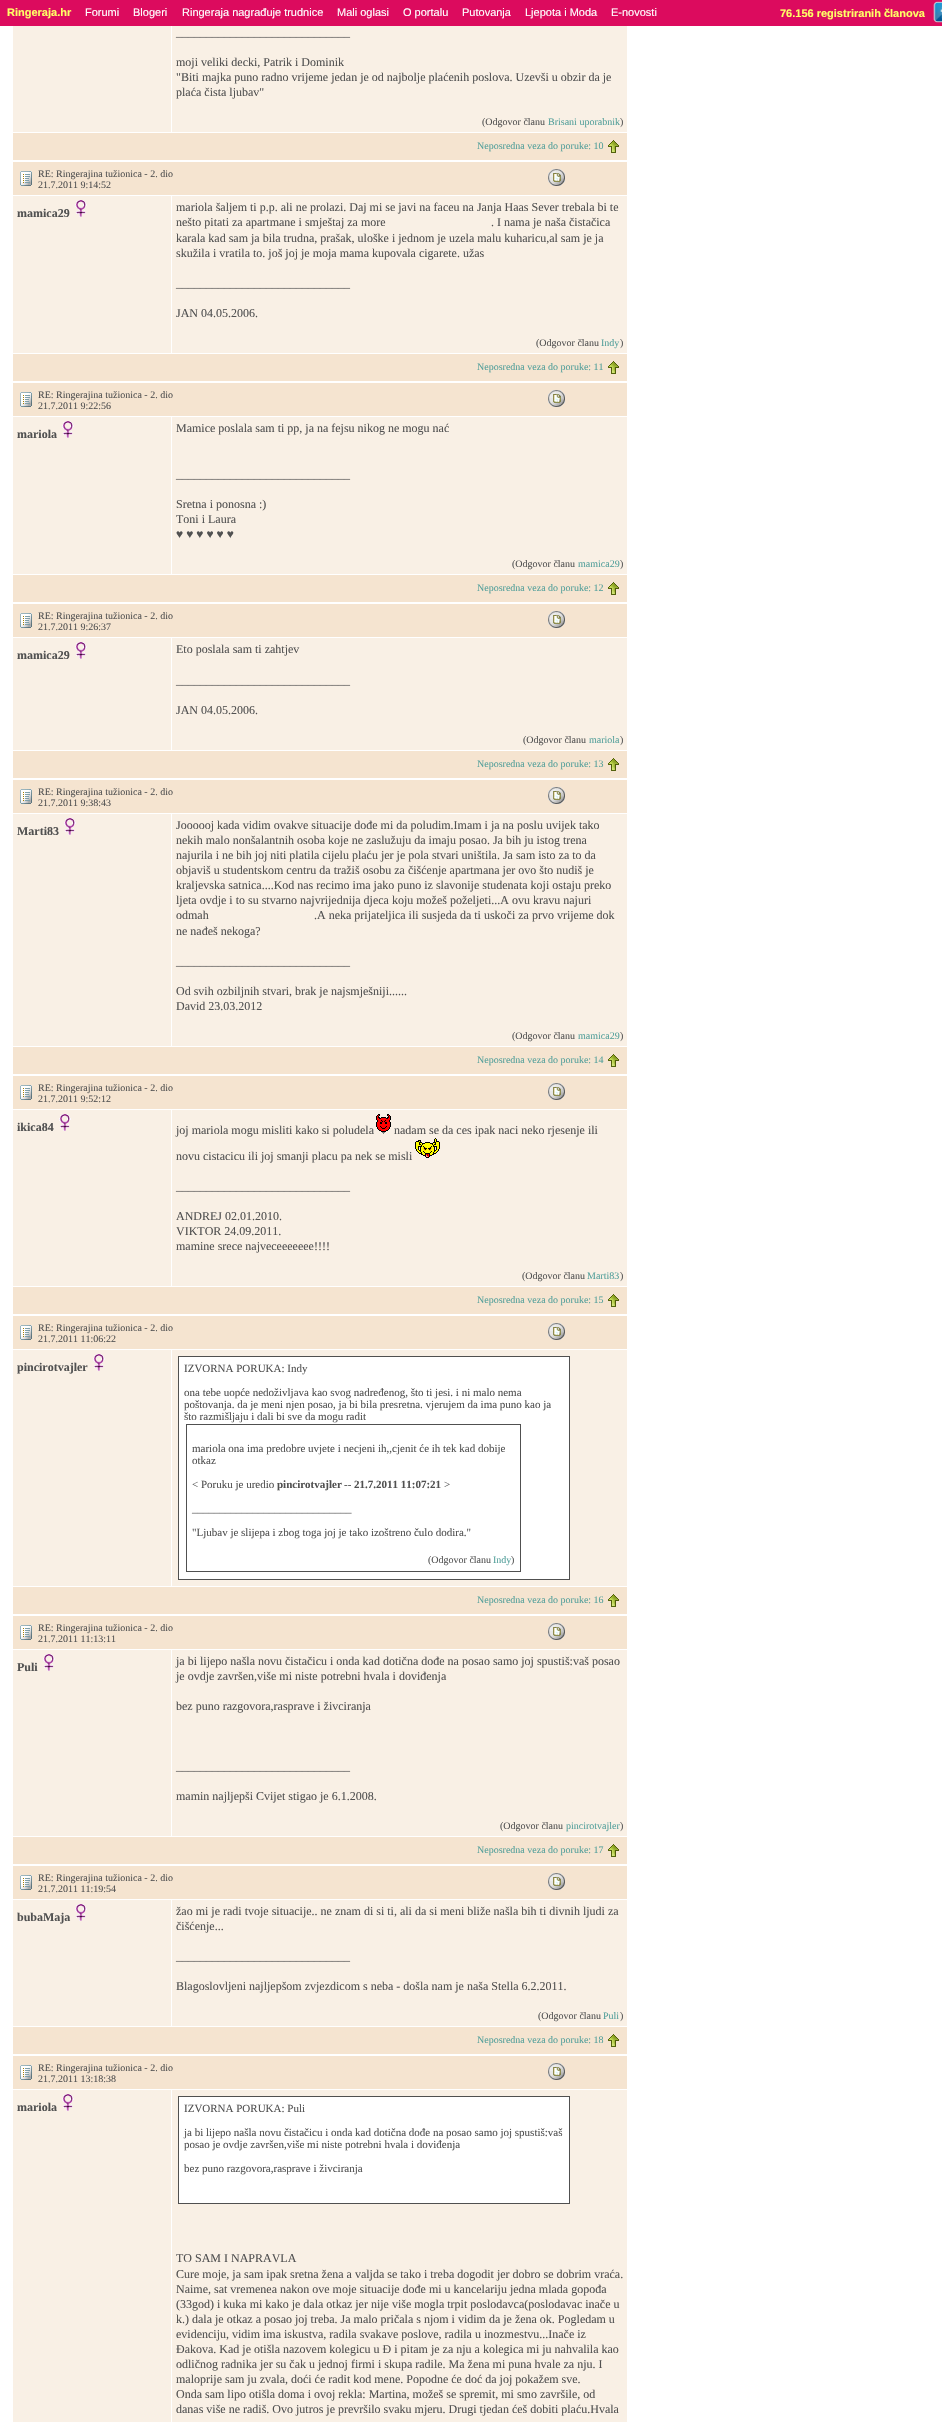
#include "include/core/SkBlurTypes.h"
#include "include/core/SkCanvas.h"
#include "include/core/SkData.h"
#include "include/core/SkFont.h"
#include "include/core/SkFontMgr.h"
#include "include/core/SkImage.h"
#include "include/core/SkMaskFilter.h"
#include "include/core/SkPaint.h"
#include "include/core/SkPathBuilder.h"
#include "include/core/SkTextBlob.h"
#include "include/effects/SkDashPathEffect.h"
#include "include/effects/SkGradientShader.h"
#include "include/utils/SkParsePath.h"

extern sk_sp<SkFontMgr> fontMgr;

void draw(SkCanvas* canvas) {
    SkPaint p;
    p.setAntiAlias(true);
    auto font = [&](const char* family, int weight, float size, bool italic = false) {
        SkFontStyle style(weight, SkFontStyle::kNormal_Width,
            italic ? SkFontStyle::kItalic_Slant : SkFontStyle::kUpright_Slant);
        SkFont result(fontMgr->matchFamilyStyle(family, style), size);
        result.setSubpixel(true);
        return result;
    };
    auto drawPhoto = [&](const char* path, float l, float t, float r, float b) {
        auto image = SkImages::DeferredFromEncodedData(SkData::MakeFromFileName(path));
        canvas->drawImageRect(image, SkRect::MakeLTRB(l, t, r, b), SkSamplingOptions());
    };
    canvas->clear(0xFFFFFFFF);
    p.setColor(0xFFDC0B5E);
    canvas->drawRect(SkRect::MakeLTRB(0, 0, 942, 26), p);
    auto font1 = font("Liberation Sans", 700, 11);
    p.setColor(0xFFFFFF66);
    canvas->drawString("Ringeraja.hr", 7, 16, font1, p);
    auto font2 = font("Liberation Sans", 400, 11);
    p.setColor(0xFFFFFFFF);
    {
        const struct { const char* s; float x, y; } items[] = {
            {"Forumi", 85, 16},
            {"Blogeri", 133, 16},
            {"Ringeraja nagrađuje trudnice", 182, 16},
            {"Mali oglasi", 337, 16},
            {"O portalu", 403, 16},
            {"Putovanja", 462, 16},
            {"Ljepota i Moda", 525, 16},
            {"E-novosti", 611, 16},
        };
        for (auto [s, x, y] : items) {
            canvas->drawString(s, x, y, font2, p);
        }
    }
    p.setColor(0xFFFFFF66);
    canvas->drawString("76.156 registriranih članova", 780, 17, font1, p);
    drawPhoto("media/1.png", 933, 1, 942, 23);
    p.setColor(0xFFF9F0E5);
    canvas->drawRect(SkRect::MakeLTRB(13, 26, 171, 132), p);
    canvas->drawRect(SkRect::MakeLTRB(172, 26, 627, 132), p);
    auto font3 = font("Liberation Serif", 400, 12);
    p.setColor(0xFF515151);
    {
        const struct { const char* s; float x, y; } items[] = {
            {"_____________________________", 176, 36},
            {"moji veliki decki, Patrik i Dominik", 176, 66},
            {"\"Biti majka puno radno vrijeme jedan je od najbolje plaćenih poslova. Uzevši u obzir da je", 176, 81},
            {"plaća čista ljubav\"", 176, 96},
        };
        for (auto [s, x, y] : items) {
            canvas->drawString(s, x, y, font3, p);
        }
    }
    auto font4 = font("Liberation Serif", 400, 10);
    canvas->drawString("(Odgovor članu", 482, 125, font4, p);
    p.setColor(0xFF54A09B);
    canvas->drawString("Brisani uporabnik", 548, 125, font4, p);
    p.setColor(0xFF515151);
    canvas->drawString(")", 620, 125, font4, p);
    p.setColor(0xFFF5E4D0);
    canvas->drawRect(SkRect::MakeLTRB(13, 133, 627, 160), p);
    p.setColor(0xFF54A09B);
    canvas->drawString("Neposredna veza do poruke: 10", 477, 149, font4, p);
    drawPhoto("media/2.png", 608, 140, 619, 153);
    p.setColor(0xFFF5E4D0);
    canvas->drawRect(SkRect::MakeLTRB(13, 162, 627, 195), p);
    drawPhoto("media/3.png", 20, 171, 32, 186);
    p.setColor(0xFF515151);
    canvas->drawString("RE: Ringerajina tužionica - 2. dio", 38, 177, font4, p);
    canvas->drawString("21.7.2011 9:14:52", 38, 188, font4, p);
    drawPhoto("media/4.png", 548, 169, 565, 186);
    p.setColor(0xFFF9F0E5);
    canvas->drawRect(SkRect::MakeLTRB(13, 196, 171, 353), p);
    auto font5 = font("Liberation Serif", 700, 12);
    p.setColor(0xFF515151);
    canvas->drawString("mamica29", 17, 217, font5, p);
    drawPhoto("media/5.png", 75, 200, 87, 217);
    p.setColor(0xFFF9F0E5);
    canvas->drawRect(SkRect::MakeLTRB(172, 196, 627, 353), p);
    p.setColor(0xFF515151);
    {
        const struct { const char* s; float x, y; } items[] = {
            {"mariola šaljem ti p.p. ali ne prolazi. Daj mi se javi na faceu na Janja Haas Sever trebala bi te", 176, 211},
            {"nešto pitati za apartmane i smještaj za more", 176, 226},
            {". I nama je naša čistačica", 491, 226},
            {"karala kad sam ja bila trudna, prašak, uloške i jednom je uzela malu kuharicu,al sam je ja", 176, 242},
            {"skužila i vratila to. još joj je moja mama kupovala cigarete. užas", 176, 257},
            {"_____________________________", 176, 287},
            {"JAN 04.05.2006.", 176, 317},
        };
        for (auto [s, x, y] : items) {
            canvas->drawString(s, x, y, font3, p);
        }
    }
    canvas->drawString("(Odgovor članu", 536, 346, font4, p);
    p.setColor(0xFF54A09B);
    canvas->drawString("Indy", 601, 346, font4, p);
    p.setColor(0xFF515151);
    canvas->drawString(")", 620, 346, font4, p);
    p.setColor(0xFFF5E4D0);
    canvas->drawRect(SkRect::MakeLTRB(13, 354, 627, 381), p);
    p.setColor(0xFF54A09B);
    canvas->drawString("Neposredna veza do poruke: 11", 477, 370, font4, p);
    drawPhoto("media/2.png", 608, 361, 619, 374);
    p.setColor(0xFFF5E4D0);
    canvas->drawRect(SkRect::MakeLTRB(13, 383, 627, 416), p);
    drawPhoto("media/3.png", 20, 392, 32, 407);
    p.setColor(0xFF515151);
    canvas->drawString("RE: Ringerajina tužionica - 2. dio", 38, 398, font4, p);
    canvas->drawString("21.7.2011 9:22:56", 38, 409, font4, p);
    drawPhoto("media/4.png", 548, 390, 565, 407);
    p.setColor(0xFFF9F0E5);
    canvas->drawRect(SkRect::MakeLTRB(13, 417, 171, 574), p);
    p.setColor(0xFF515151);
    canvas->drawString("mariola", 17, 438, font5, p);
    drawPhoto("media/5.png", 62, 421, 74, 438);
    p.setColor(0xFFF9F0E5);
    canvas->drawRect(SkRect::MakeLTRB(172, 417, 627, 574), p);
    p.setColor(0xFF515151);
    {
        const struct { const char* s; float x, y; } items[] = {
            {"Mamice poslala sam ti pp, ja na fejsu nikog ne mogu nać", 176, 432},
            {"_____________________________", 176, 478},
            {"Sretna i ponosna :)", 176, 508},
            {"Toni i Laura", 176, 523},
            {"♥ ♥ ♥ ♥ ♥ ♥", 176, 538},
        };
        for (auto [s, x, y] : items) {
            canvas->drawString(s, x, y, font3, p);
        }
    }
    canvas->drawString("(Odgovor članu", 512, 567, font4, p);
    p.setColor(0xFF54A09B);
    canvas->drawString("mamica29", 578, 567, font4, p);
    p.setColor(0xFF515151);
    canvas->drawString(")", 620, 567, font4, p);
    p.setColor(0xFFF5E4D0);
    canvas->drawRect(SkRect::MakeLTRB(13, 575, 627, 602), p);
    p.setColor(0xFF54A09B);
    canvas->drawString("Neposredna veza do poruke: 12", 477, 591, font4, p);
    drawPhoto("media/2.png", 608, 582, 619, 595);
    p.setColor(0xFFF5E4D0);
    canvas->drawRect(SkRect::MakeLTRB(13, 604, 627, 637), p);
    drawPhoto("media/3.png", 20, 613, 32, 628);
    p.setColor(0xFF515151);
    canvas->drawString("RE: Ringerajina tužionica - 2. dio", 38, 619, font4, p);
    canvas->drawString("21.7.2011 9:26:37", 38, 630, font4, p);
    drawPhoto("media/4.png", 548, 611, 565, 628);
    p.setColor(0xFFF9F0E5);
    canvas->drawRect(SkRect::MakeLTRB(13, 638, 171, 750), p);
    p.setColor(0xFF515151);
    canvas->drawString("mamica29", 17, 659, font5, p);
    drawPhoto("media/5.png", 75, 642, 87, 659);
    p.setColor(0xFFF9F0E5);
    canvas->drawRect(SkRect::MakeLTRB(172, 638, 627, 750), p);
    p.setColor(0xFF515151);
    {
        const struct { const char* s; float x, y; } items[] = {
            {"Eto poslala sam ti zahtjev", 176, 653},
            {"_____________________________", 176, 684},
            {"JAN 04.05.2006.", 176, 714},
        };
        for (auto [s, x, y] : items) {
            canvas->drawString(s, x, y, font3, p);
        }
    }
    canvas->drawString("(Odgovor članu", 523, 743, font4, p);
    p.setColor(0xFF54A09B);
    canvas->drawString("mariola", 589, 743, font4, p);
    p.setColor(0xFF515151);
    canvas->drawString(")", 620, 743, font4, p);
    p.setColor(0xFFF5E4D0);
    canvas->drawRect(SkRect::MakeLTRB(13, 751, 627, 778), p);
    p.setColor(0xFF54A09B);
    canvas->drawString("Neposredna veza do poruke: 13", 477, 767, font4, p);
    drawPhoto("media/2.png", 608, 758, 619, 771);
    p.setColor(0xFFF5E4D0);
    canvas->drawRect(SkRect::MakeLTRB(13, 780, 627, 813), p);
    drawPhoto("media/3.png", 20, 789, 32, 804);
    p.setColor(0xFF515151);
    canvas->drawString("RE: Ringerajina tužionica - 2. dio", 38, 795, font4, p);
    canvas->drawString("21.7.2011 9:38:43", 38, 806, font4, p);
    drawPhoto("media/4.png", 548, 787, 565, 804);
    p.setColor(0xFFF9F0E5);
    canvas->drawRect(SkRect::MakeLTRB(13, 814, 171, 1046), p);
    p.setColor(0xFF515151);
    canvas->drawString("Marti83", 17, 835, font5, p);
    drawPhoto("media/5.png", 64, 818, 76, 835);
    p.setColor(0xFFF9F0E5);
    canvas->drawRect(SkRect::MakeLTRB(172, 814, 627, 1046), p);
    p.setColor(0xFF515151);
    {
        const struct { const char* s; float x, y; } items[] = {
            {"Joooooj kada vidim ovakve situacije dođe mi da poludim.Imam i ja na poslu uvijek tako", 176, 829},
            {"nekih malo nonšalantnih osoba koje ne zaslužuju da imaju posao. Ja bih ju istog trena", 176, 844},
            {"najurila i ne bih joj niti platila cijelu plaću jer je pola stvari uništila. Ja sam isto za to da", 176, 859},
            {"objaviš u studentskom centru da tražiš osobu za čišćenje apartmana jer ovo što nudiš je", 176, 874},
            {"kraljevska satnica....Kod nas recimo ima jako puno iz slavonije studenata koji ostaju preko", 176, 889},
            {"ljeta ovdje i to su stvarno najvrijednija djeca koju možeš poželjeti...A ovu kravu najuri", 176, 904},
            {"odmah", 176, 919},
            {".A neka prijateljica ili susjeda da ti uskoči za prvo vrijeme dok", 314, 919},
            {"ne nađeš nekoga?", 176, 935},
            {"_____________________________", 176, 965},
            {"Od svih ozbiljnih stvari, brak je najsmješniji......", 176, 995},
            {"David 23.03.2012", 176, 1010},
        };
        for (auto [s, x, y] : items) {
            canvas->drawString(s, x, y, font3, p);
        }
    }
    canvas->drawString("(Odgovor članu", 512, 1039, font4, p);
    p.setColor(0xFF54A09B);
    canvas->drawString("mamica29", 578, 1039, font4, p);
    p.setColor(0xFF515151);
    canvas->drawString(")", 620, 1039, font4, p);
    p.setColor(0xFFF5E4D0);
    canvas->drawRect(SkRect::MakeLTRB(13, 1047, 627, 1074), p);
    p.setColor(0xFF54A09B);
    canvas->drawString("Neposredna veza do poruke: 14", 477, 1063, font4, p);
    drawPhoto("media/2.png", 608, 1054, 619, 1067);
    p.setColor(0xFFF5E4D0);
    canvas->drawRect(SkRect::MakeLTRB(13, 1076, 627, 1109), p);
    drawPhoto("media/3.png", 20, 1085, 32, 1100);
    p.setColor(0xFF515151);
    canvas->drawString("RE: Ringerajina tužionica - 2. dio", 38, 1091, font4, p);
    canvas->drawString("21.7.2011 9:52:12", 38, 1102, font4, p);
    drawPhoto("media/4.png", 548, 1083, 565, 1100);
    p.setColor(0xFFF9F0E5);
    canvas->drawRect(SkRect::MakeLTRB(13, 1110, 171, 1286), p);
    p.setColor(0xFF515151);
    canvas->drawString("ikica84", 17, 1131, font5, p);
    drawPhoto("media/5.png", 59, 1114, 71, 1131);
    p.setColor(0xFFF9F0E5);
    canvas->drawRect(SkRect::MakeLTRB(172, 1110, 627, 1286), p);
    p.setColor(0xFF515151);
    canvas->drawString("joj mariola mogu misliti kako si poludela", 176, 1134, font3, p);
    drawPhoto("media/6.png", 376, 1114, 391, 1134);
    canvas->drawString("nadam se da ces ipak naci neko rjesenje ili", 394, 1134, font3, p);
    canvas->drawString("novu cistacicu ili joj smanji placu pa nek se misli", 176, 1160, font3, p);
    drawPhoto("media/7.png", 415, 1138, 440, 1158);
    {
        const struct { const char* s; float x, y; } items[] = {
            {"_____________________________", 176, 1190},
            {"ANDREJ 02.01.2010.", 176, 1220},
            {"VIKTOR 24.09.2011.", 176, 1235},
            {"mamine srece najveceeeeeee!!!!", 176, 1250},
        };
        for (auto [s, x, y] : items) {
            canvas->drawString(s, x, y, font3, p);
        }
    }
    canvas->drawString("(Odgovor članu", 522, 1279, font4, p);
    p.setColor(0xFF54A09B);
    canvas->drawString("Marti83", 587, 1279, font4, p);
    p.setColor(0xFF515151);
    canvas->drawString(")", 620, 1279, font4, p);
    p.setColor(0xFFF5E4D0);
    canvas->drawRect(SkRect::MakeLTRB(13, 1287, 627, 1314), p);
    p.setColor(0xFF54A09B);
    canvas->drawString("Neposredna veza do poruke: 15", 477, 1303, font4, p);
    drawPhoto("media/2.png", 608, 1294, 619, 1307);
    p.setColor(0xFFF5E4D0);
    canvas->drawRect(SkRect::MakeLTRB(13, 1316, 627, 1349), p);
    drawPhoto("media/3.png", 20, 1325, 32, 1340);
    p.setColor(0xFF515151);
    canvas->drawString("RE: Ringerajina tužionica - 2. dio", 38, 1331, font4, p);
    canvas->drawString("21.7.2011 11:06:22", 38, 1342, font4, p);
    drawPhoto("media/4.png", 548, 1323, 565, 1340);
    p.setColor(0xFFF9F0E5);
    canvas->drawRect(SkRect::MakeLTRB(13, 1350, 171, 1586), p);
    p.setColor(0xFF515151);
    canvas->drawString("pincirotvajler", 17, 1371, font5, p);
    drawPhoto("media/5.png", 93, 1354, 105, 1371);
    p.setColor(0xFFF9F0E5);
    canvas->drawRect(SkRect::MakeLTRB(172, 1350, 627, 1586), p);
    p.setColor(0xFFFFFFFF);
    canvas->drawRect(SkRect::MakeLTRB(178.5f, 1356.5f, 569.5f, 1579.5f), p);
    p.setStyle(SkPaint::kStroke_Style);
    p.setStrokeWidth(1);
    p.setColor(0xFF505050);
    canvas->drawRect(SkRect::MakeLTRB(178.5f, 1356.5f, 569.5f, 1579.5f), p);
    auto font6 = font("Liberation Serif", 400, 11);
    p.setStyle(SkPaint::kFill_Style);
    p.setColor(0xFF515151);
    {
        const struct { const char* s; float x, y; } items[] = {
            {"IZVORNA PORUKA: Indy", 184, 1372},
            {"ona tebe uopće nedoživljava kao svog nadređenog, što ti jesi. i ni malo nema", 184, 1396},
            {"poštovanja. da je meni njen posao, ja bi bila presretna. vjerujem da ima puno kao ja", 184, 1408},
            {"što razmišljaju i dali bi sve da mogu radit", 184, 1420},
        };
        for (auto [s, x, y] : items) {
            canvas->drawString(s, x, y, font6, p);
        }
    }
    p.setStyle(SkPaint::kStroke_Style);
    p.setColor(0xFF505050);
    canvas->drawRect(SkRect::MakeLTRB(186.5f, 1424.5f, 520.5f, 1571.5f), p);
    p.setStyle(SkPaint::kFill_Style);
    p.setColor(0xFF515151);
    {
        const struct { const char* s; float x, y; } items[] = {
            {"mariola ona ima predobre uvjete i necjeni ih,,cjenit će ih tek kad dobije", 192, 1452},
            {"otkaz", 192, 1464},
            {"< Poruku je uredio", 192, 1488},
        };
        for (auto [s, x, y] : items) {
            canvas->drawString(s, x, y, font6, p);
        }
    }
    auto font7 = font("Liberation Serif", 700, 11);
    canvas->drawString("pincirotvajler", 277, 1488, font7, p);
    canvas->drawString("--", 344, 1488, font6, p);
    canvas->drawString("21.7.2011 11:07:21", 354, 1488, font7, p);
    {
        const struct { const char* s; float x, y; } items[] = {
            {">", 444, 1488},
            {"_____________________________", 192, 1512},
            {"\"Ljubav je slijepa i zbog toga joj je tako izoštreno čulo dodira.\"", 192, 1536},
        };
        for (auto [s, x, y] : items) {
            canvas->drawString(s, x, y, font6, p);
        }
    }
    canvas->drawString("(Odgovor članu", 428, 1563, font4, p);
    p.setColor(0xFF54A09B);
    canvas->drawString("Indy", 493, 1563, font4, p);
    p.setColor(0xFF515151);
    canvas->drawString(")", 511, 1563, font4, p);
    p.setColor(0xFFF5E4D0);
    canvas->drawRect(SkRect::MakeLTRB(13, 1587, 627, 1614), p);
    p.setColor(0xFF54A09B);
    canvas->drawString("Neposredna veza do poruke: 16", 477, 1603, font4, p);
    drawPhoto("media/2.png", 608, 1594, 619, 1607);
    p.setColor(0xFFF5E4D0);
    canvas->drawRect(SkRect::MakeLTRB(13, 1616, 627, 1649), p);
    drawPhoto("media/3.png", 20, 1625, 32, 1640);
    p.setColor(0xFF515151);
    canvas->drawString("RE: Ringerajina tužionica - 2. dio", 38, 1631, font4, p);
    canvas->drawString("21.7.2011 11:13:11", 38, 1642, font4, p);
    drawPhoto("media/4.png", 548, 1623, 565, 1640);
    p.setColor(0xFFF9F0E5);
    canvas->drawRect(SkRect::MakeLTRB(13, 1650, 171, 1836), p);
    p.setColor(0xFF515151);
    canvas->drawString("Puli", 17, 1671, font5, p);
    drawPhoto("media/5.png", 43, 1654, 55, 1671);
    p.setColor(0xFFF9F0E5);
    canvas->drawRect(SkRect::MakeLTRB(172, 1650, 627, 1836), p);
    p.setColor(0xFF515151);
    {
        const struct { const char* s; float x, y; } items[] = {
            {"ja bi lijepo našla novu čistačicu i onda kad dotična dođe na posao samo joj spustiš:vaš posao", 176, 1665},
            {"je ovdje završen,više mi niste potrebni hvala i doviđenja", 176, 1680},
            {"bez puno razgovora,rasprave i živciranja", 176, 1710},
            {"_____________________________", 176, 1770},
            {"mamin najljepši Cvijet stigao je 6.1.2008.", 176, 1800},
        };
        for (auto [s, x, y] : items) {
            canvas->drawString(s, x, y, font3, p);
        }
    }
    canvas->drawString("(Odgovor članu", 500, 1829, font4, p);
    p.setColor(0xFF54A09B);
    canvas->drawString("pincirotvajler", 566, 1829, font4, p);
    p.setColor(0xFF515151);
    canvas->drawString(")", 620, 1829, font4, p);
    p.setColor(0xFFF5E4D0);
    canvas->drawRect(SkRect::MakeLTRB(13, 1837, 627, 1864), p);
    p.setColor(0xFF54A09B);
    canvas->drawString("Neposredna veza do poruke: 17", 477, 1853, font4, p);
    drawPhoto("media/2.png", 608, 1844, 619, 1857);
    p.setColor(0xFFF5E4D0);
    canvas->drawRect(SkRect::MakeLTRB(13, 1866, 627, 1899), p);
    drawPhoto("media/3.png", 20, 1875, 32, 1890);
    p.setColor(0xFF515151);
    canvas->drawString("RE: Ringerajina tužionica - 2. dio", 38, 1881, font4, p);
    canvas->drawString("21.7.2011 11:19:54", 38, 1892, font4, p);
    drawPhoto("media/4.png", 548, 1873, 565, 1890);
    p.setColor(0xFFF9F0E5);
    canvas->drawRect(SkRect::MakeLTRB(13, 1900, 171, 2026), p);
    p.setColor(0xFF515151);
    canvas->drawString("bubaMaja", 17, 1921, font5, p);
    drawPhoto("media/5.png", 75, 1904, 87, 1921);
    p.setColor(0xFFF9F0E5);
    canvas->drawRect(SkRect::MakeLTRB(172, 1900, 627, 2026), p);
    p.setColor(0xFF515151);
    {
        const struct { const char* s; float x, y; } items[] = {
            {"žao mi je radi tvoje situacije.. ne znam di si ti, ali da si meni bliže našla bih ti divnih ljudi za", 176, 1915},
            {"čišćenje...", 176, 1930},
            {"_____________________________", 176, 1960},
            {"Blagoslovljeni najljepšom zvjezdicom s neba - došla nam je naša Stella 6.2.2011.", 176, 1990},
        };
        for (auto [s, x, y] : items) {
            canvas->drawString(s, x, y, font3, p);
        }
    }
    canvas->drawString("(Odgovor članu", 538, 2019, font4, p);
    p.setColor(0xFF54A09B);
    canvas->drawString("Puli", 603, 2019, font4, p);
    p.setColor(0xFF515151);
    canvas->drawString(")", 620, 2019, font4, p);
    p.setColor(0xFFF5E4D0);
    canvas->drawRect(SkRect::MakeLTRB(13, 2027, 627, 2054), p);
    p.setColor(0xFF54A09B);
    canvas->drawString("Neposredna veza do poruke: 18", 477, 2043, font4, p);
    drawPhoto("media/2.png", 608, 2034, 619, 2047);
    p.setColor(0xFFF5E4D0);
    canvas->drawRect(SkRect::MakeLTRB(13, 2056, 627, 2089), p);
    drawPhoto("media/3.png", 20, 2065, 32, 2080);
    p.setColor(0xFF515151);
    canvas->drawString("RE: Ringerajina tužionica - 2. dio", 38, 2071, font4, p);
    canvas->drawString("21.7.2011 13:18:38", 38, 2082, font4, p);
    drawPhoto("media/4.png", 548, 2063, 565, 2080);
    p.setColor(0xFFF9F0E5);
    canvas->drawRect(SkRect::MakeLTRB(13, 2090, 171, 2422), p);
    p.setColor(0xFF515151);
    canvas->drawString("mariola", 17, 2111, font5, p);
    drawPhoto("media/5.png", 62, 2094, 74, 2111);
    p.setColor(0xFFF9F0E5);
    canvas->drawRect(SkRect::MakeLTRB(172, 2090, 627, 2422), p);
    p.setColor(0xFFFFFFFF);
    canvas->drawRect(SkRect::MakeLTRB(178.5f, 2096.5f, 569.5f, 2203.5f), p);
    p.setStyle(SkPaint::kStroke_Style);
    p.setColor(0xFF505050);
    canvas->drawRect(SkRect::MakeLTRB(178.5f, 2096.5f, 569.5f, 2203.5f), p);
    p.setStyle(SkPaint::kFill_Style);
    p.setColor(0xFF515151);
    {
        const struct { const char* s; float x, y; } items[] = {
            {"IZVORNA PORUKA: Puli", 184, 2112},
            {"ja bi lijepo našla novu čistačicu i onda kad dotična dođe na posao samo joj spustiš:vaš", 184, 2136},
            {"posao je ovdje završen,više mi niste potrebni hvala i doviđenja", 184, 2148},
            {"bez puno razgovora,rasprave i živciranja", 184, 2172},
        };
        for (auto [s, x, y] : items) {
            canvas->drawString(s, x, y, font6, p);
        }
    }
    {
        const struct { const char* s; float x, y; } items[] = {
            {"TO SAM I NAPRAVLA", 176, 2262},
            {"Cure moje, ja sam ipak sretna žena a valjda se tako i treba dogodit jer dobro se dobrim vraća.", 176, 2278},
            {"Naime, sat vremenea nakon ove moje situacije dođe mi u kancelariju jedna mlada gopođa", 176, 2293},
            {"(33god) i kuka mi kako je dala otkaz jer nije više mogla trpit poslodavca(poslodavac inače u", 176, 2308},
            {"k.) dala je otkaz a posao joj treba. Ja malo pričala s njom i vidim da je žena ok. Pogledam u", 176, 2323},
            {"evidenciju, vidim ima iskustva, radila svakave poslove, radila u inozmestvu...Inače iz", 176, 2338},
            {"Đakova. Kad je otišla nazovem kolegicu u Đ i pitam je za nju a kolegica mi ju nahvalila kao", 176, 2353},
            {"odličnog radnika jer su čak u jednoj firmi i skupa radile. Ma žena mi puna hvale za nju. I", 176, 2368},
            {"maloprije sam ju zvala, doći će radit kod mene. Popodne će doć da joj pokažem sve.", 176, 2383},
            {"Onda sam lipo otišla doma i ovoj rekla: Martina, možeš se spremit, mi smo završile, od", 176, 2398},
            {"danas više ne radiš. Ovo jutros je prevršilo svaku mjeru. Drugi tjedan ćeš dobiti plaću.Hvala", 176, 2413},
        };
        for (auto [s, x, y] : items) {
            canvas->drawString(s, x, y, font3, p);
        }
    }
}
